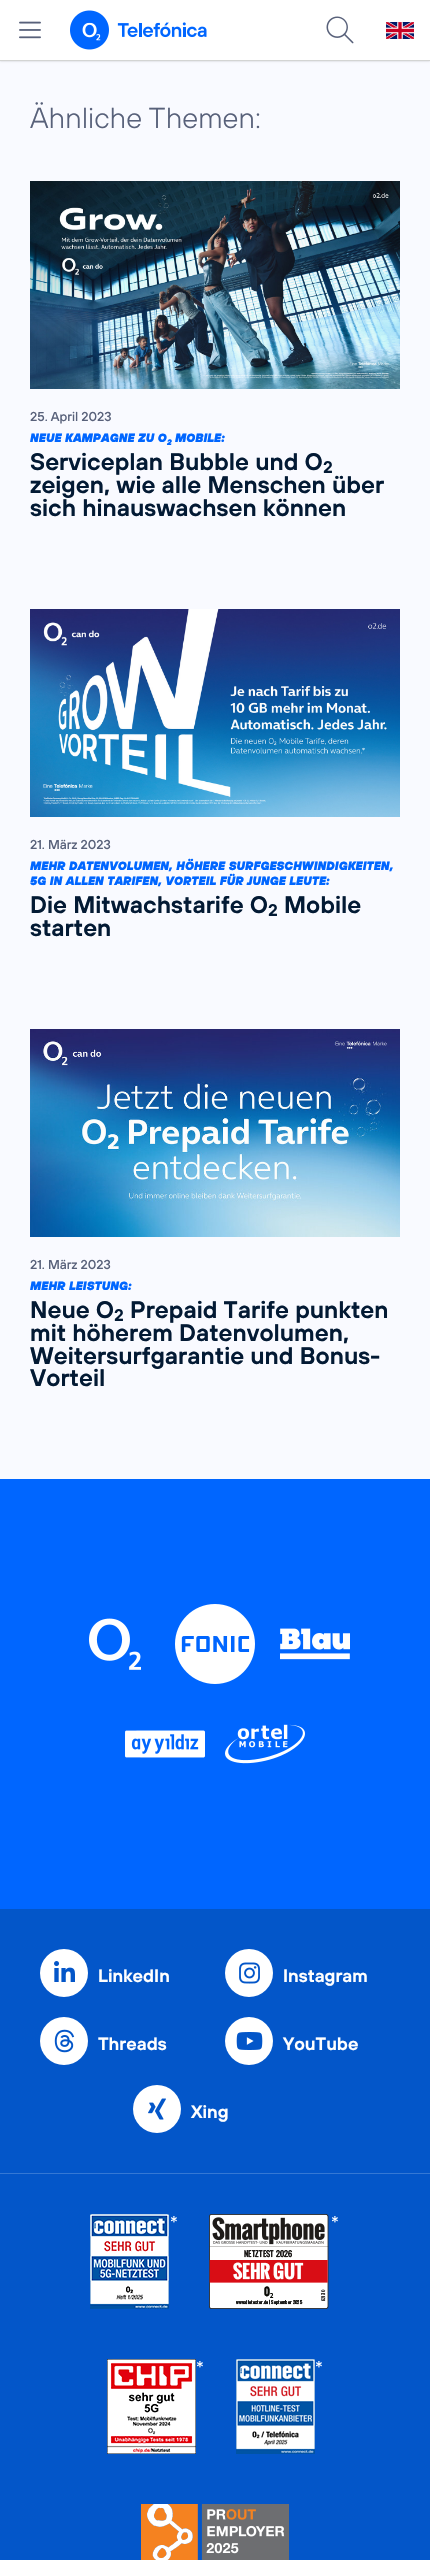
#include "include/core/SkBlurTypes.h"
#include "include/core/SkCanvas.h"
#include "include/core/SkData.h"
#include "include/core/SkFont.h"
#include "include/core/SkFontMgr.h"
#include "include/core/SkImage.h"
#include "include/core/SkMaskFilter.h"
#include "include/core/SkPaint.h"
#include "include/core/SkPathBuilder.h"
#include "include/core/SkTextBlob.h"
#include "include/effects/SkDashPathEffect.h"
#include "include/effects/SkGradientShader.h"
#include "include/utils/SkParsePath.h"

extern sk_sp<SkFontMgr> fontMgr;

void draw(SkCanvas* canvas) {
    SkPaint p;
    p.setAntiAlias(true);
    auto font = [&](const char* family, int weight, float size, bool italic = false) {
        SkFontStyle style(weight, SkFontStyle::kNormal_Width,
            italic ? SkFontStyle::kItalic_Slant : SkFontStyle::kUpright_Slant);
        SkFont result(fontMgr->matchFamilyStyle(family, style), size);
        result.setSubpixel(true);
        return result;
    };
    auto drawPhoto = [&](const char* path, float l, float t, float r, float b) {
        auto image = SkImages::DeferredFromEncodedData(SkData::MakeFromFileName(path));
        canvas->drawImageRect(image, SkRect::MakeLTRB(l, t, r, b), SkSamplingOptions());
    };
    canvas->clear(0xFF0356C9);
    p.setColor(0xFFF9FAFF);
    canvas->drawRect(SkRect::MakeLTRB(0, 61, 430, 1479), p);
    p.setColor(0x33000000);
    p.setMaskFilter(SkMaskFilter::MakeBlur(kNormal_SkBlurStyle, 1));
    canvas->drawRect(SkRect::MakeLTRB(0, 0, 430, 61), p);
    p.setMaskFilter(nullptr);
    p.setColor(0xFFFFFFFF);
    canvas->drawRect(SkRect::MakeLTRB(0, 0, 430, 60), p);
    p.setColor(0xFFD3D4D3);
    canvas->drawRect(SkRect::MakeLTRB(0, 60, 430, 61), p);
    drawPhoto("media/1.png", 19, 21, 41, 39);
    drawPhoto("media/2.png", 70, 10, 207, 50);
    drawPhoto("media/3.png", 326, 16, 354, 44);
    drawPhoto("media/4.png", 386, 22, 414, 39);
    auto font1 = font("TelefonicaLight", 300, 29);
    p.setColor(0xFF58617A);
    canvas->drawString("Ähnliche Themen:", 30, 128, font1, p);
    drawPhoto("media/5.png", 30, 181, 400, 389);
    auto font2 = font("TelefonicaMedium", 500, 13);
    canvas->drawString("25. April 2023", 30, 421, font2, p);
    auto font3 = font("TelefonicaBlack", 900, 12, true);
    p.setColor(0xFF0066FF);
    canvas->drawString("NEUE KAMPAGNE ZU O", 30, 442, font3, p);
    auto font4 = font("TelefonicaBlack", 900, 8, true);
    canvas->drawString("2", 167, 445, font4, p);
    canvas->drawString("MOBILE:", 175, 442, font3, p);
    auto font5 = font("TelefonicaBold", 600, 24);
    p.setColor(0xFF031A34);
    canvas->drawString("Serviceplan Bubble und O", 30, 470, font5, p);
    auto font6 = font("TelefonicaBold", 600, 17);
    canvas->drawString("2", 323, 473, font6, p);
    canvas->drawString("zeigen, wie alle Menschen über", 30, 493, font5, p);
    canvas->drawString("sich hinauswachsen können", 30, 516, font5, p);
    drawPhoto("media/6.png", 30, 609, 400, 817);
    p.setColor(0xFF58617A);
    canvas->drawString("21. März 2023", 30, 849, font2, p);
    p.setColor(0xFF0066FF);
    canvas->drawString("MEHR DATENVOLUMEN, HÖHERE SURFGESCHWINDIGKEITEN,", 30, 870, font3, p);
    canvas->drawString("5G IN ALLEN TARIFEN, VORTEIL FÜR JUNGE LEUTE:", 30, 885, font3, p);
    p.setColor(0xFF031A34);
    canvas->drawString("Die Mitwachstarife O", 30, 913, font5, p);
    canvas->drawString("2", 268, 916, font6, p);
    canvas->drawString("Mobile", 284, 913, font5, p);
    canvas->drawString("starten", 30, 936, font5, p);
    drawPhoto("media/7.png", 30, 1029, 400, 1237);
    p.setColor(0xFF58617A);
    canvas->drawString("21. März 2023", 30, 1269, font2, p);
    p.setColor(0xFF0066FF);
    canvas->drawString("MEHR LEISTUNG:", 30, 1290, font3, p);
    p.setColor(0xFF031A34);
    canvas->drawString("Neue O", 30, 1318, font5, p);
    canvas->drawString("2", 114, 1321, font6, p);
    {
        const struct { const char* s; float x, y; } items[] = {
            {"Prepaid Tarife punkten", 130, 1318},
            {"mit höherem Datenvolumen,", 30, 1341},
            {"Weitersurfgarantie und Bonus-", 30, 1364},
            {"Vorteil", 30, 1386},
        };
        for (auto [s, x, y] : items) {
            canvas->drawString(s, x, y, font5, p);
        }
    }
    p.setColor(0xFF0066FF);
    canvas->drawRect(SkRect::MakeLTRB(0, 1479, 430, 1909), p);
    drawPhoto("media/8.png", 89, 1618, 141, 1670);
    drawPhoto("media/9.png", 175, 1604, 255, 1684);
    drawPhoto("media/10.png", 280, 1628, 350, 1660);
    drawPhoto("media/11.png", 125, 1730, 205, 1758);
    drawPhoto("media/12.png", 225, 1724, 305, 1764);
    p.setColor(0xFFFFFFFF);
    canvas->drawCircle(64, 1973, 24, p);
    drawPhoto("media/13.png", 54, 1961, 75, 1982);
    auto font7 = font("TelefonicaBold", 600, 18);
    canvas->drawString("LinkedIn", 98, 1982, font7, p);
    canvas->drawCircle(249, 1973, 24, p);
    drawPhoto("media/14.png", 239, 1962, 260, 1984);
    canvas->drawString("Instagram", 283, 1982, font7, p);
    canvas->drawCircle(64, 2041, 24, p);
    drawPhoto("media/15.png", 54, 2029, 75, 2053);
    canvas->drawString("Threads", 98, 2050, font7, p);
    canvas->drawCircle(249, 2041, 24, p);
    drawPhoto("media/16.png", 236, 2032, 263, 2050);
    canvas->drawString("YouTube", 283, 2050, font7, p);
    canvas->drawCircle(157, 2109, 24, p);
    drawPhoto("media/17.png", 148, 2098, 166, 2120);
    canvas->drawString("Xing", 191, 2118, font7, p);
    p.setColor(0xFF3578D4);
    canvas->drawRect(SkRect::MakeLTRB(0, 2173, 430, 2174), p);
    drawPhoto("media/18.png", 90, 2214, 177, 2309);
    drawPhoto("media/19.png", 209, 2214, 338, 2309);
    drawPhoto("media/20.png", 107, 2359, 203, 2454);
    drawPhoto("media/21.png", 236, 2359, 322, 2454);
    drawPhoto("media/22.png", 141, 2504, 289, 2560);
}
